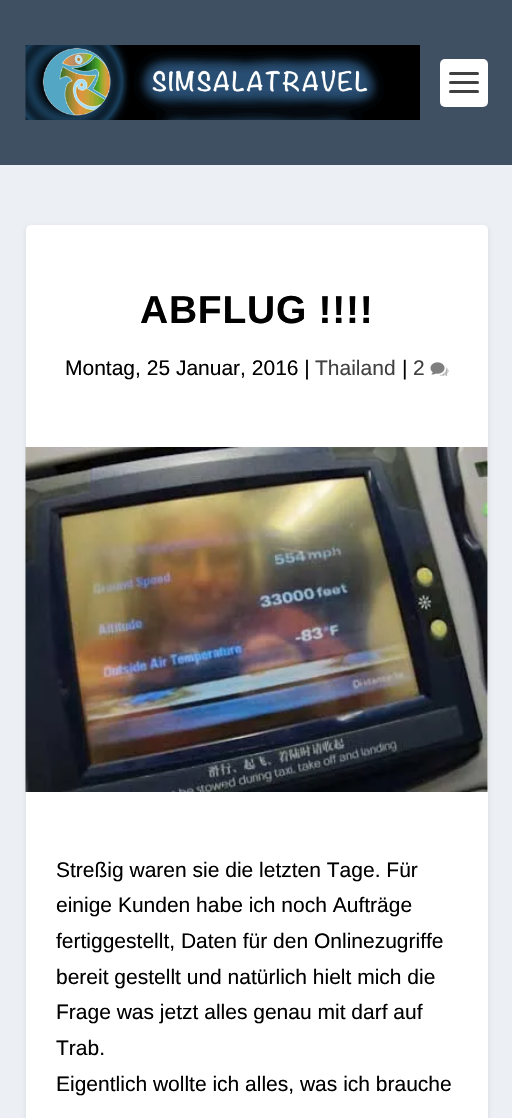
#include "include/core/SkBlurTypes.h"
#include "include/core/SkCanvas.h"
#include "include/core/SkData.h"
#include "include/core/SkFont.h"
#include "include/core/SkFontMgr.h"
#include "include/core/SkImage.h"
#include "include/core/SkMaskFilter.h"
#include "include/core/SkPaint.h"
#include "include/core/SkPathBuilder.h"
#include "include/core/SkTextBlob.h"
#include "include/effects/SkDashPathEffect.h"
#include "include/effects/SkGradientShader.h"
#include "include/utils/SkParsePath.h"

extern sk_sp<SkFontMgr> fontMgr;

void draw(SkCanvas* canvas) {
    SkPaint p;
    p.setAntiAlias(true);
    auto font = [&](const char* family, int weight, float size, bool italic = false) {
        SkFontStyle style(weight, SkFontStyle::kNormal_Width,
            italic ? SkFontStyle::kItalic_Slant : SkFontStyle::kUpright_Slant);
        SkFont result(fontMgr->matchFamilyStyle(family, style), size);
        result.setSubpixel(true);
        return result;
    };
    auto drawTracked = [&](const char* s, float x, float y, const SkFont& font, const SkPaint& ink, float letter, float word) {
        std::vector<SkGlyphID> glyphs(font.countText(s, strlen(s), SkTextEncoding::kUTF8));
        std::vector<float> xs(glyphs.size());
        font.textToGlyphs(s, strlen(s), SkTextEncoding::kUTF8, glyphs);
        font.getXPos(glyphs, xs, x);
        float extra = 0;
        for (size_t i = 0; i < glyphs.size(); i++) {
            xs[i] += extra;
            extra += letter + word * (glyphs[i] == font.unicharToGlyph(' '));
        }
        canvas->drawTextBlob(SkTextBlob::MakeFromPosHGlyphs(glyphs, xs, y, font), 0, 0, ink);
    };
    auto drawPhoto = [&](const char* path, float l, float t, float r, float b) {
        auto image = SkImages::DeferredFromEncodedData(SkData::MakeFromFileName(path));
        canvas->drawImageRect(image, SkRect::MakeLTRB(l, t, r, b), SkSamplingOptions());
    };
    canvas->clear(0xFFECF0F5);
    p.setColor(0xFF3E5062);
    canvas->drawRect(SkRect::MakeLTRB(0, 0, 512, 165), p);
    drawPhoto("media/1.png", 25, 45, 420, 120);
    p.setColor(0xFFFFFFFF);
    canvas->drawRoundRect(SkRect::MakeLTRB(440, 59, 488, 107), 5, 5, p);
    p.setColor(0xFF404040);
    canvas->drawRoundRect(SkRect::MakeLTRB(449, 72, 479, 75), 1.5f, 1.5f, p);
    canvas->drawRoundRect(SkRect::MakeLTRB(449, 81, 479, 84), 1.5f, 1.5f, p);
    canvas->drawRoundRect(SkRect::MakeLTRB(449, 90, 479, 93), 1.5f, 1.5f, p);
    p.setColor(0x1A000000);
    p.setMaskFilter(SkMaskFilter::MakeBlur(kNormal_SkBlurStyle, 2));
    canvas->drawRoundRect(SkRect::MakeLTRB(26, 227, 488, 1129), 5, 5, p);
    p.setMaskFilter(nullptr);
    p.setColor(0xFFFFFFFF);
    canvas->drawRoundRect(SkRect::MakeLTRB(26, 225, 488, 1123), 5, 5, p);
    auto font1 = font("Liberation Sans", 700, 39);
    p.setColor(0xFF000000);
    drawTracked("ABFLUG !!!!", 140, 323, font1, p, 0.75f, 0);
    auto font2 = font("Liberation Sans", 400, 21);
    canvas->drawString("Montag, 25 Januar, 2016 |", 65, 375, font2, p);
    p.setColor(0xFF404040);
    canvas->drawString("Thailand", 315, 375, font2, p);
    p.setColor(0xFF000000);
    canvas->drawString("|", 402, 375, font2, p);
    p.setColor(0xFF404040);
    canvas->drawString("2", 413, 375, font2, p);
    drawPhoto("media/2.png", 430, 362, 449, 376);
    drawPhoto("media/3.png", 25, 447, 488, 792);
    p.setColor(0xFF000000);
    {
        const struct { const char* s; float x, y; } items[] = {
            {"Streßig waren sie die letzten Tage. Für", 56, 877},
            {"einige Kunden habe ich noch Aufträge", 56, 912},
            {"fertiggestellt, Daten für den Onlinezugriffe", 56, 948},
            {"bereit gestellt und natürlich hielt mich die", 56, 984},
            {"Frage was jetzt alles genau mit darf auf", 56, 1019},
            {"Trab.", 56, 1055},
            {"Eigentlich wollte ich alles, was ich brauche", 56, 1091},
        };
        for (auto [s, x, y] : items) {
            canvas->drawString(s, x, y, font2, p);
        }
    }
}
